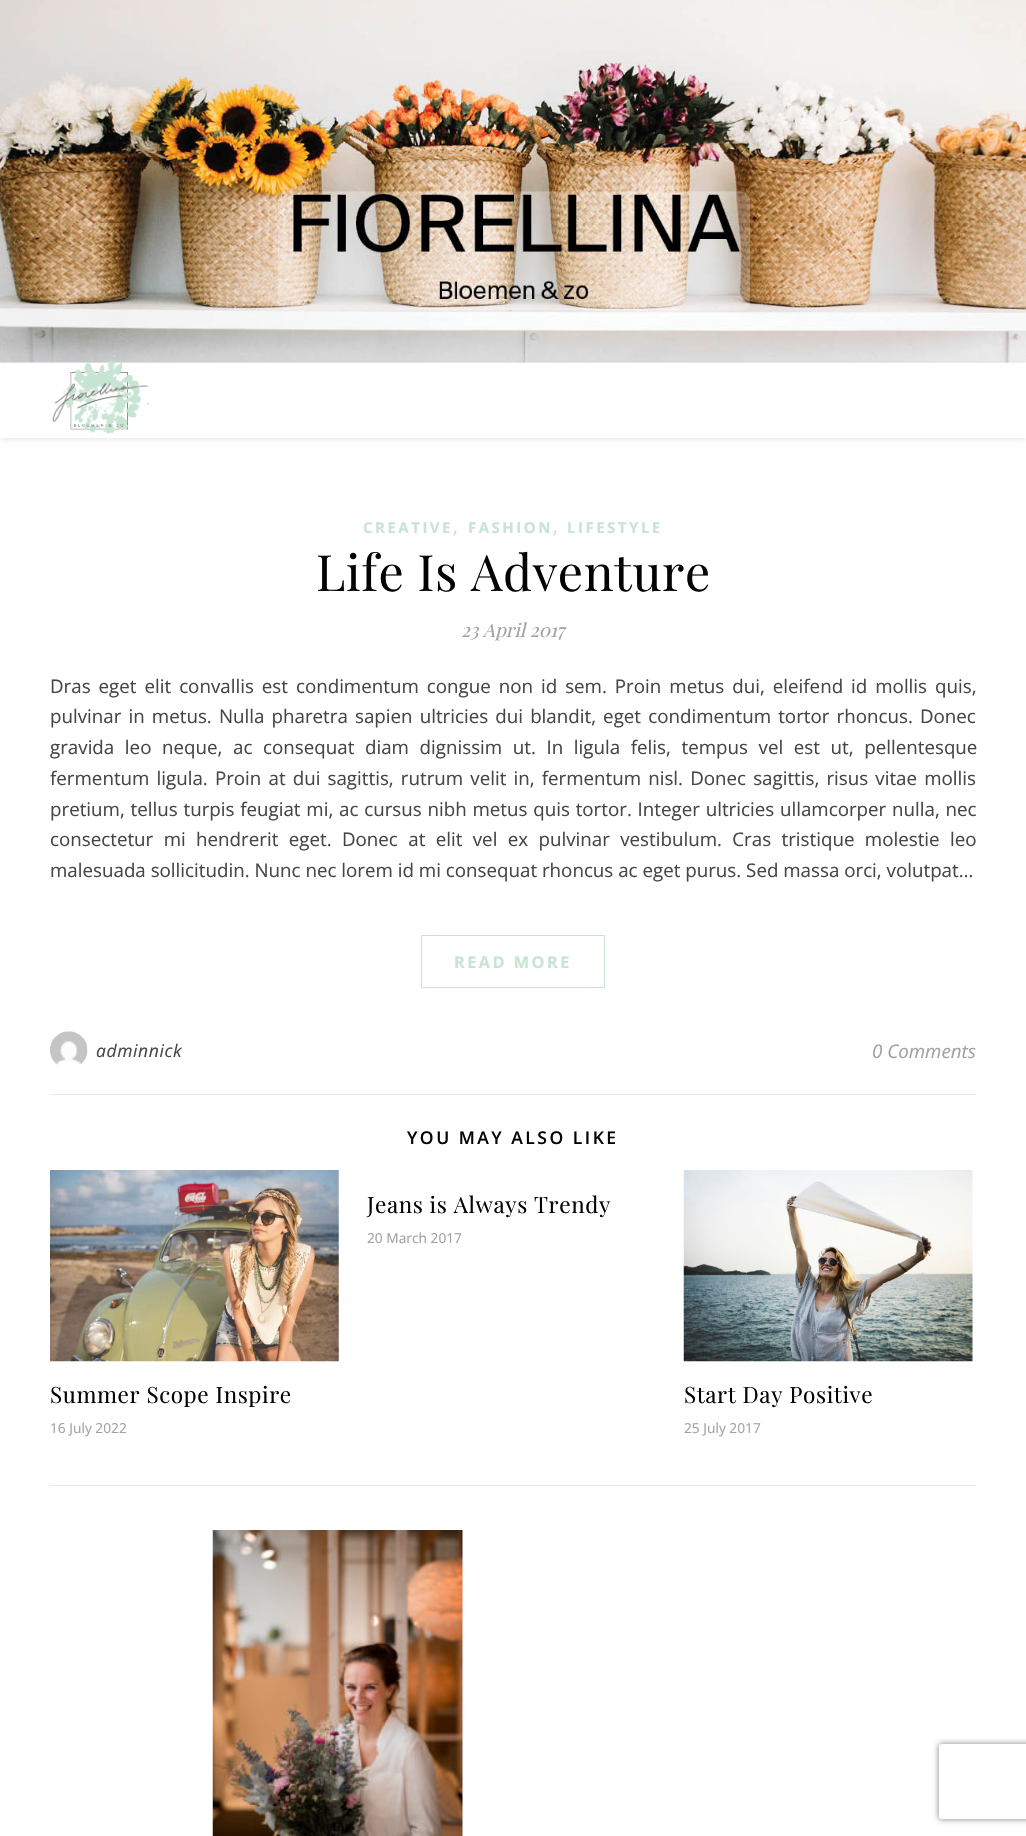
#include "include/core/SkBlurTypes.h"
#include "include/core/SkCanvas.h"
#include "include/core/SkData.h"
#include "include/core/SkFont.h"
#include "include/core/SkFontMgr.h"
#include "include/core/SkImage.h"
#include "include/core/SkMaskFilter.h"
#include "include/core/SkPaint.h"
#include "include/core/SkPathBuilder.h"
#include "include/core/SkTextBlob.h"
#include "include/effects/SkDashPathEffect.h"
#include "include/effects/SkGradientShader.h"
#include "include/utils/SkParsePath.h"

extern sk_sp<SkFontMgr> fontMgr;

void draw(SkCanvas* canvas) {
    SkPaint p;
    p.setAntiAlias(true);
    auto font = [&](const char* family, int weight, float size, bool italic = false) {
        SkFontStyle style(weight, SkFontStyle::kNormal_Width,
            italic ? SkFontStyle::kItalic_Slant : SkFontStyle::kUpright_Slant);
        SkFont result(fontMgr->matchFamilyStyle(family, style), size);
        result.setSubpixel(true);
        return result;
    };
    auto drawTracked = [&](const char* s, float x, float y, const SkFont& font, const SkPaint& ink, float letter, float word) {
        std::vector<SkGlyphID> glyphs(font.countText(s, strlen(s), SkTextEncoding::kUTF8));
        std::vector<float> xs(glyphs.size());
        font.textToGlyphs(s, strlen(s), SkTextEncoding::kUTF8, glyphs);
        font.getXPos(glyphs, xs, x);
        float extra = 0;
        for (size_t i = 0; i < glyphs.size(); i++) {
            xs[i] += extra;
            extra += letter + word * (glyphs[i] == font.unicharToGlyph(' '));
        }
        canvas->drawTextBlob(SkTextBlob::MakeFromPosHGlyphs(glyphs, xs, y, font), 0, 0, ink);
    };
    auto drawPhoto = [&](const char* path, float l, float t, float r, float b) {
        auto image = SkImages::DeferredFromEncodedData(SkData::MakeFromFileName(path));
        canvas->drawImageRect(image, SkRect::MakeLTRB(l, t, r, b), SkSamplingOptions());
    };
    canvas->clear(0xFFFFFFFF);
    drawPhoto("media/1.png", 0, 0, 1026, 363);
    p.setColor(0x1A000000);
    p.setMaskFilter(SkMaskFilter::MakeBlur(kNormal_SkBlurStyle, 3));
    canvas->drawRect(SkRect::MakeLTRB(0, 364, 1026, 439), p);
    p.setMaskFilter(nullptr);
    p.setColor(0xFFFFFFFF);
    canvas->drawRect(SkRect::MakeLTRB(0, 363, 1026, 438), p);
    drawPhoto("media/2.png", 52, 355, 150, 434);
    auto font1 = font("Open Sans", 700, 15);
    p.setColor(0xFFC8E4D3);
    drawTracked("CREATIVE", 363, 533, font1, p, 2.5f, 0);
    auto font2 = font("Open Sans", 400, 18.75f);
    canvas->drawString(",", 453, 533, font2, p);
    drawTracked("FASHION", 468, 533, font1, p, 2.5f, 0);
    canvas->drawString(",", 553, 533, font2, p);
    drawTracked("LIFESTYLE", 567, 533, font1, p, 2.5f, 0);
    auto font3 = font("Playfair Display", 400, 50);
    p.setColor(0xFF030303);
    drawTracked("Life Is Adventure", 316, 591, font3, p, 0.6f, 0);
    auto font4 = font("Playfair Display", 400, 18.75f, true);
    p.setColor(0xFFA1A1A1);
    canvas->drawString("23 April 2017", 461, 637, font4, p);
    p.setColor(0xFF464646);
    drawTracked("Dras eget elit convallis est condimentum congue non id sem. Proin metus dui, eleifend id mollis quis,", 50, 693, font2, p, 0, 3.1f);
    drawTracked("pulvinar in metus. Nulla pharetra sapien ultricies dui blandit, eget condimentum tortor rhoncus. Donec", 50, 723, font2, p, 0, 2.25f);
    drawTracked("gravida leo neque, ac consequat diam dignissim ut. In ligula felis, tempus vel est ut, pellentesque", 50, 754, font2, p, 0, 5.75f);
    drawTracked("fermentum ligula. Proin at dui sagittis, rutrum velit in, fermentum nisl. Donec sagittis, risus vitae mollis", 50, 785, font2, p, 0, 2.25f);
    drawTracked("pretium, tellus turpis feugiat mi, ac cursus nibh metus quis tortor. Integer ultricies ullamcorper nulla, nec", 50, 816, font2, p, 0, 0.9f);
    drawTracked("consectetur mi hendrerit eget. Donec at elit vel ex pulvinar vestibulum. Cras tristique molestie leo", 50, 846, font2, p, 0, 5.5f);
    canvas->drawString("malesuada sollicitudin. Nunc nec lorem id mi consequat rhoncus ac eget purus. Sed massa orci, volutpat…", 50, 877, font2, p);
    p.setStyle(SkPaint::kStroke_Style);
    p.setStrokeWidth(1);
    p.setColor(0xFFC8E4D3);
    canvas->drawRect(SkRect::MakeLTRB(421.5f, 935.5f, 604.5f, 987.5f), p);
    auto font5 = font("Open Sans", 700, 16.25f);
    p.setStyle(SkPaint::kFill_Style);
    drawTracked("READ MORE", 454, 968, font5, p, 2.5f, 0);
    p.setColor(0xFFE8E8E8);
    canvas->drawRect(SkRect::MakeLTRB(50, 1094, 976, 1095), p);
    drawPhoto("media/3.png", 50, 1031, 88, 1066);
    auto font6 = font("Open Sans", 400, 17.5f, true);
    p.setColor(0xFF464646);
    drawTracked("adminnick", 96, 1057, font6, p, 0.6f, 0);
    auto font7 = font("Open Sans", 400, 18.75f, true);
    p.setColor(0xFFA1A1A1);
    canvas->drawString("0 Comments", 872, 1058, font7, p);
    p.setColor(0xFFE8E8E8);
    canvas->drawRect(SkRect::MakeLTRB(50, 1485, 976, 1486), p);
    auto font8 = font("Open Sans", 600, 17.5f);
    p.setColor(0xFF030303);
    drawTracked("YOU MAY ALSO LIKE", 407, 1144, font8, p, 2.5f, 0);
    auto font9 = font("Playfair Display", 400, 22.5f);
    drawTracked("Jeans is Always Trendy", 367, 1213, font9, p, 0.6f, 0);
    auto font10 = font("Open Sans", 400, 13.75f);
    p.setColor(0xFFA1A1A1);
    canvas->drawString("20 March 2017", 367, 1243, font10, p);
    drawPhoto("media/4.png", 50, 1170, 339, 1362);
    p.setColor(0xFF030303);
    drawTracked("Summer Scope Inspire", 50, 1403, font9, p, 0.6f, 0);
    p.setColor(0xFFA1A1A1);
    canvas->drawString("16 July 2022", 50, 1433, font10, p);
    drawPhoto("media/5.png", 683, 1170, 973, 1362);
    p.setColor(0xFF030303);
    drawTracked("Start Day Positive", 684, 1403, font9, p, 0.6f, 0);
    p.setColor(0xFFA1A1A1);
    canvas->drawString("25 July 2017", 684, 1433, font10, p);
    drawPhoto("media/6.png", 212, 1530, 463, 1836);
    canvas->save();
    canvas->clipPath(SkPathBuilder(SkPathFillType::kEvenOdd).moveTo(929, 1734).lineTo(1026, 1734).lineTo(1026, 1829).lineTo(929, 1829).close().moveTo(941.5f, 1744).lineTo(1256.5f, 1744).cubicTo(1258, 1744, 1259, 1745, 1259, 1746.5f).lineTo(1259, 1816.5f).cubicTo(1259, 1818, 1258, 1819, 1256.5f, 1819).lineTo(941.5f, 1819).cubicTo(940, 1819, 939, 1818, 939, 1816.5f).lineTo(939, 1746.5f).cubicTo(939, 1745, 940, 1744, 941.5f, 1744).close().detach(), true);
    p.setColor(0xFF808080);
    p.setMaskFilter(SkMaskFilter::MakeBlur(kNormal_SkBlurStyle, 3));
    canvas->drawRoundRect(SkRect::MakeLTRB(939, 1744, 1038, 1819), 2.5f, 2.5f, p);
    p.setMaskFilter(nullptr);
    canvas->restore();
}
